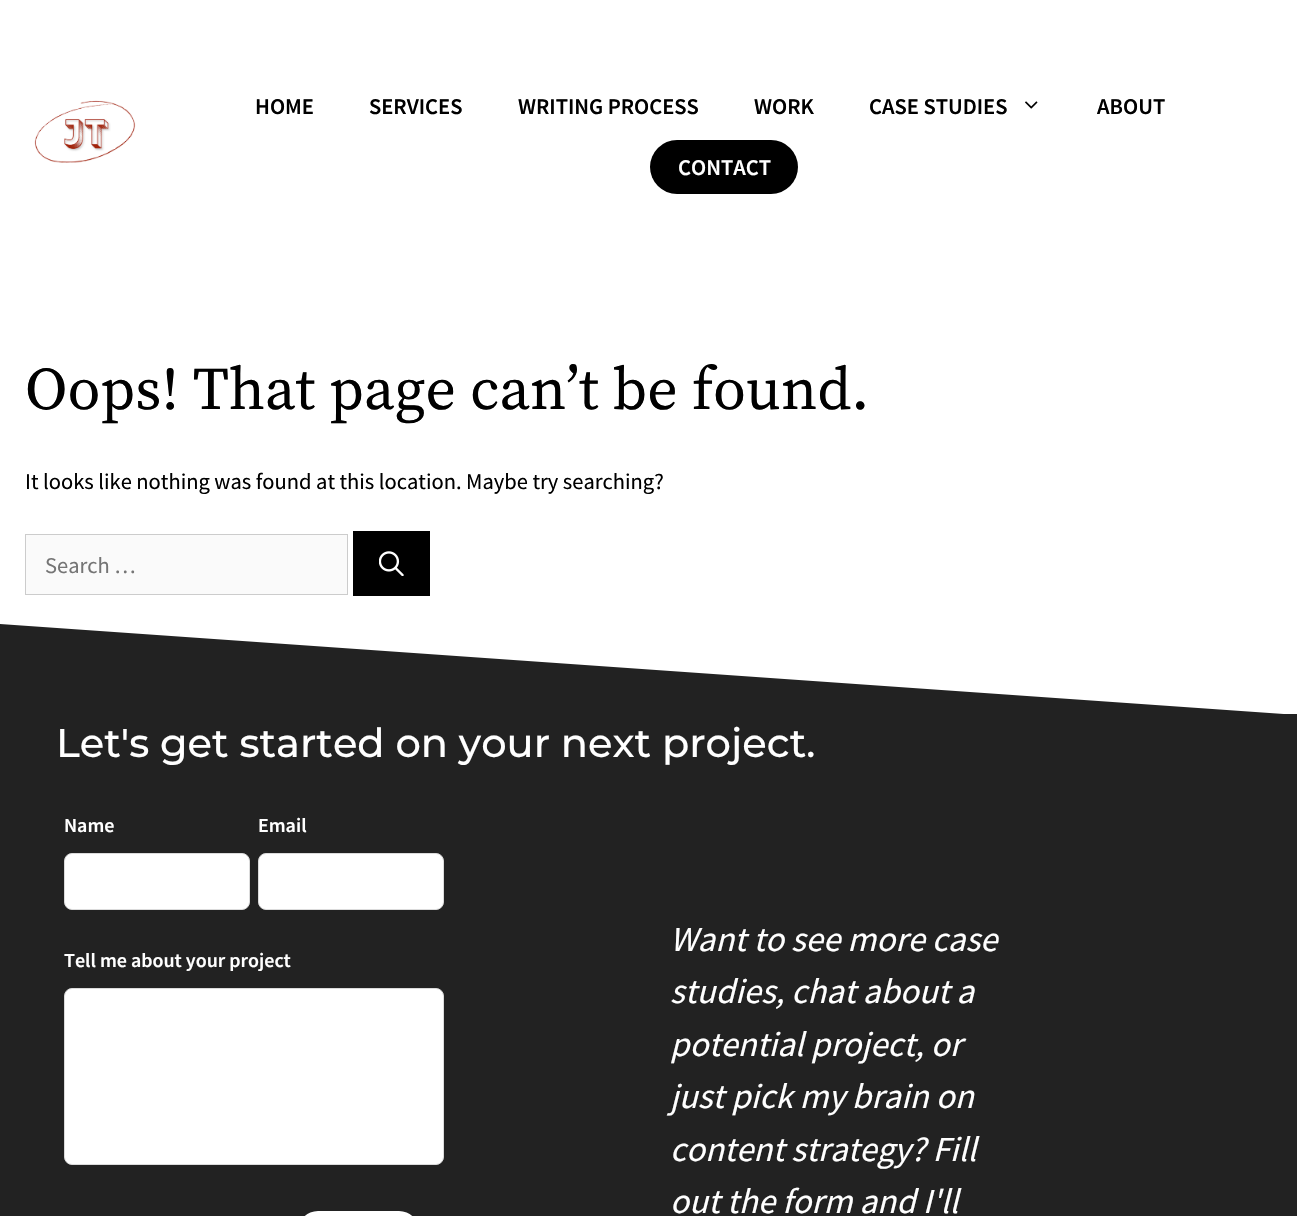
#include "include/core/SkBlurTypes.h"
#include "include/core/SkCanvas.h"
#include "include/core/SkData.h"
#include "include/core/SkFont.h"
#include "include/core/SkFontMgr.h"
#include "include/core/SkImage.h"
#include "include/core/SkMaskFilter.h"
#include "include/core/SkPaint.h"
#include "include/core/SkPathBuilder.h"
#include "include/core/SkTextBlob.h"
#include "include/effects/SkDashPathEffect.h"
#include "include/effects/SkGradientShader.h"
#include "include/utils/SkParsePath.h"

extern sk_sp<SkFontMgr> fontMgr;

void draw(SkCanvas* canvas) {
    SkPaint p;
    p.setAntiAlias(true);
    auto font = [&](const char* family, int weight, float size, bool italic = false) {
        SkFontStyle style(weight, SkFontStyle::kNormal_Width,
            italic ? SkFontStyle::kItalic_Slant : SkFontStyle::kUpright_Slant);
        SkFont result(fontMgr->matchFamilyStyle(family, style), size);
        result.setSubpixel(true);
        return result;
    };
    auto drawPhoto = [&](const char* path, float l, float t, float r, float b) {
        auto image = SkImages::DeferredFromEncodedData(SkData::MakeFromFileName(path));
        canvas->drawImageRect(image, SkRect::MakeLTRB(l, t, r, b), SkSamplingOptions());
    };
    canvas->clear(0xFFFFFFFF);
    drawPhoto("media/1.png", 34, 100, 136, 163);
    auto font1 = font("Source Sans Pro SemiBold", 600, 22.5f);
    p.setColor(0xFF000000);
    {
        const struct { const char* s; float x, y; } items[] = {
            {"HOME", 255, 114},
            {"SERVICES", 369, 114},
            {"WRITING PROCESS", 518, 114},
            {"WORK", 754, 114},
            {"CASE STUDIES", 869, 114},
        };
        for (auto [s, x, y] : items) {
            canvas->drawString(s, x, y, font1, p);
        }
    }
    drawPhoto("media/2.png", 1025, 101, 1038, 109);
    canvas->drawString("ABOUT", 1097, 114, font1, p);
    canvas->drawRoundRect(SkRect::MakeLTRB(650, 140, 798, 194), 27, 27, p);
    p.setColor(0xFFFFFFFF);
    canvas->drawString("CONTACT", 678, 175, font1, p);
    auto font2 = font("Source Serif Pro", 400, 60);
    p.setColor(0xFF000000);
    canvas->drawString("Oops! That page can’t be found.", 25, 409, font2, p);
    auto font3 = font("Source Sans Pro", 400, 22.5f);
    canvas->drawString("It looks like nothing was found at this location. Maybe try searching?", 25, 489, font3, p);
    p.setColor(0xFFFAFAFA);
    canvas->drawRect(SkRect::MakeLTRB(25.5f, 534.5f, 347.5f, 594.5f), p);
    p.setStyle(SkPaint::kStroke_Style);
    p.setStrokeWidth(1);
    p.setColor(0xFFCCCCCC);
    canvas->drawRect(SkRect::MakeLTRB(25.5f, 534.5f, 347.5f, 594.5f), p);
    p.setStyle(SkPaint::kFill_Style);
    p.setColor(0xFF757575);
    canvas->drawString("Search …", 45, 573, font3, p);
    p.setColor(0xFF000000);
    canvas->drawRect(SkRect::MakeLTRB(353, 531, 430, 596), p);
    drawPhoto("media/3.png", 379, 551, 404, 576);
    p.setColor(0xFF222222);
    canvas->drawRect(SkRect::MakeLTRB(0, 624, 1297, 1216), p);
    canvas->save();
    canvas->clipRect(SkRect::MakeLTRB(0, 620, 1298, 714));
    p.setColor(0xFFFFFFFF);
    canvas->drawPath(SkPathBuilder().moveTo(0, 621).lineTo(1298, 621).lineTo(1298, 715).lineTo(0, 624).close().detach(), p);
    canvas->restore();
    auto font4 = font("Montserrat", 500, 40);
    canvas->drawString("Let's get started on your next project.", 56, 757, font4, p);
    auto font5 = font("Source Sans Pro SemiBold", 600, 20);
    canvas->drawString("Name", 64, 832, font5, p);
    canvas->drawRoundRect(SkRect::MakeLTRB(64.5f, 853.5f, 249.5f, 909.5f), 7.5f, 7.5f, p);
    p.setStyle(SkPaint::kStroke_Style);
    p.setColor(0xFFDBDBDB);
    canvas->drawRoundRect(SkRect::MakeLTRB(64.5f, 853.5f, 249.5f, 909.5f), 7.5f, 7.5f, p);
    p.setStyle(SkPaint::kFill_Style);
    p.setColor(0xFFFFFFFF);
    canvas->drawString("Email", 258, 832, font5, p);
    canvas->drawRoundRect(SkRect::MakeLTRB(258.5f, 853.5f, 443.5f, 909.5f), 7.5f, 7.5f, p);
    p.setStyle(SkPaint::kStroke_Style);
    p.setColor(0xFFDBDBDB);
    canvas->drawRoundRect(SkRect::MakeLTRB(258.5f, 853.5f, 443.5f, 909.5f), 7.5f, 7.5f, p);
    p.setStyle(SkPaint::kFill_Style);
    p.setColor(0xFFFFFFFF);
    canvas->drawString("Tell me about your project", 64, 967, font5, p);
    canvas->drawRoundRect(SkRect::MakeLTRB(64.5f, 988.5f, 443.5f, 1164.5f), 7.5f, 7.5f, p);
    p.setStyle(SkPaint::kStroke_Style);
    p.setColor(0xFFDBDBDB);
    canvas->drawRoundRect(SkRect::MakeLTRB(64.5f, 988.5f, 443.5f, 1164.5f), 7.5f, 7.5f, p);
    p.setStyle(SkPaint::kFill_Style);
    p.setColor(0xFFFFFFFF);
    canvas->drawRoundRect(SkRect::MakeLTRB(298, 1211, 419, 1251), 35, 35, p);
    auto font6 = font("Source Sans Pro", 400, 35, true);
    {
        const struct { const char* s; float x, y; } items[] = {
            {"Want to see more case", 670, 951},
            {"studies, chat about a", 670, 1003},
            {"potential project, or", 670, 1056},
            {"just pick my brain on", 670, 1108},
            {"content strategy? Fill", 670, 1161},
            {"out the form and I'll", 670, 1213},
        };
        for (auto [s, x, y] : items) {
            canvas->drawString(s, x, y, font6, p);
        }
    }
}
